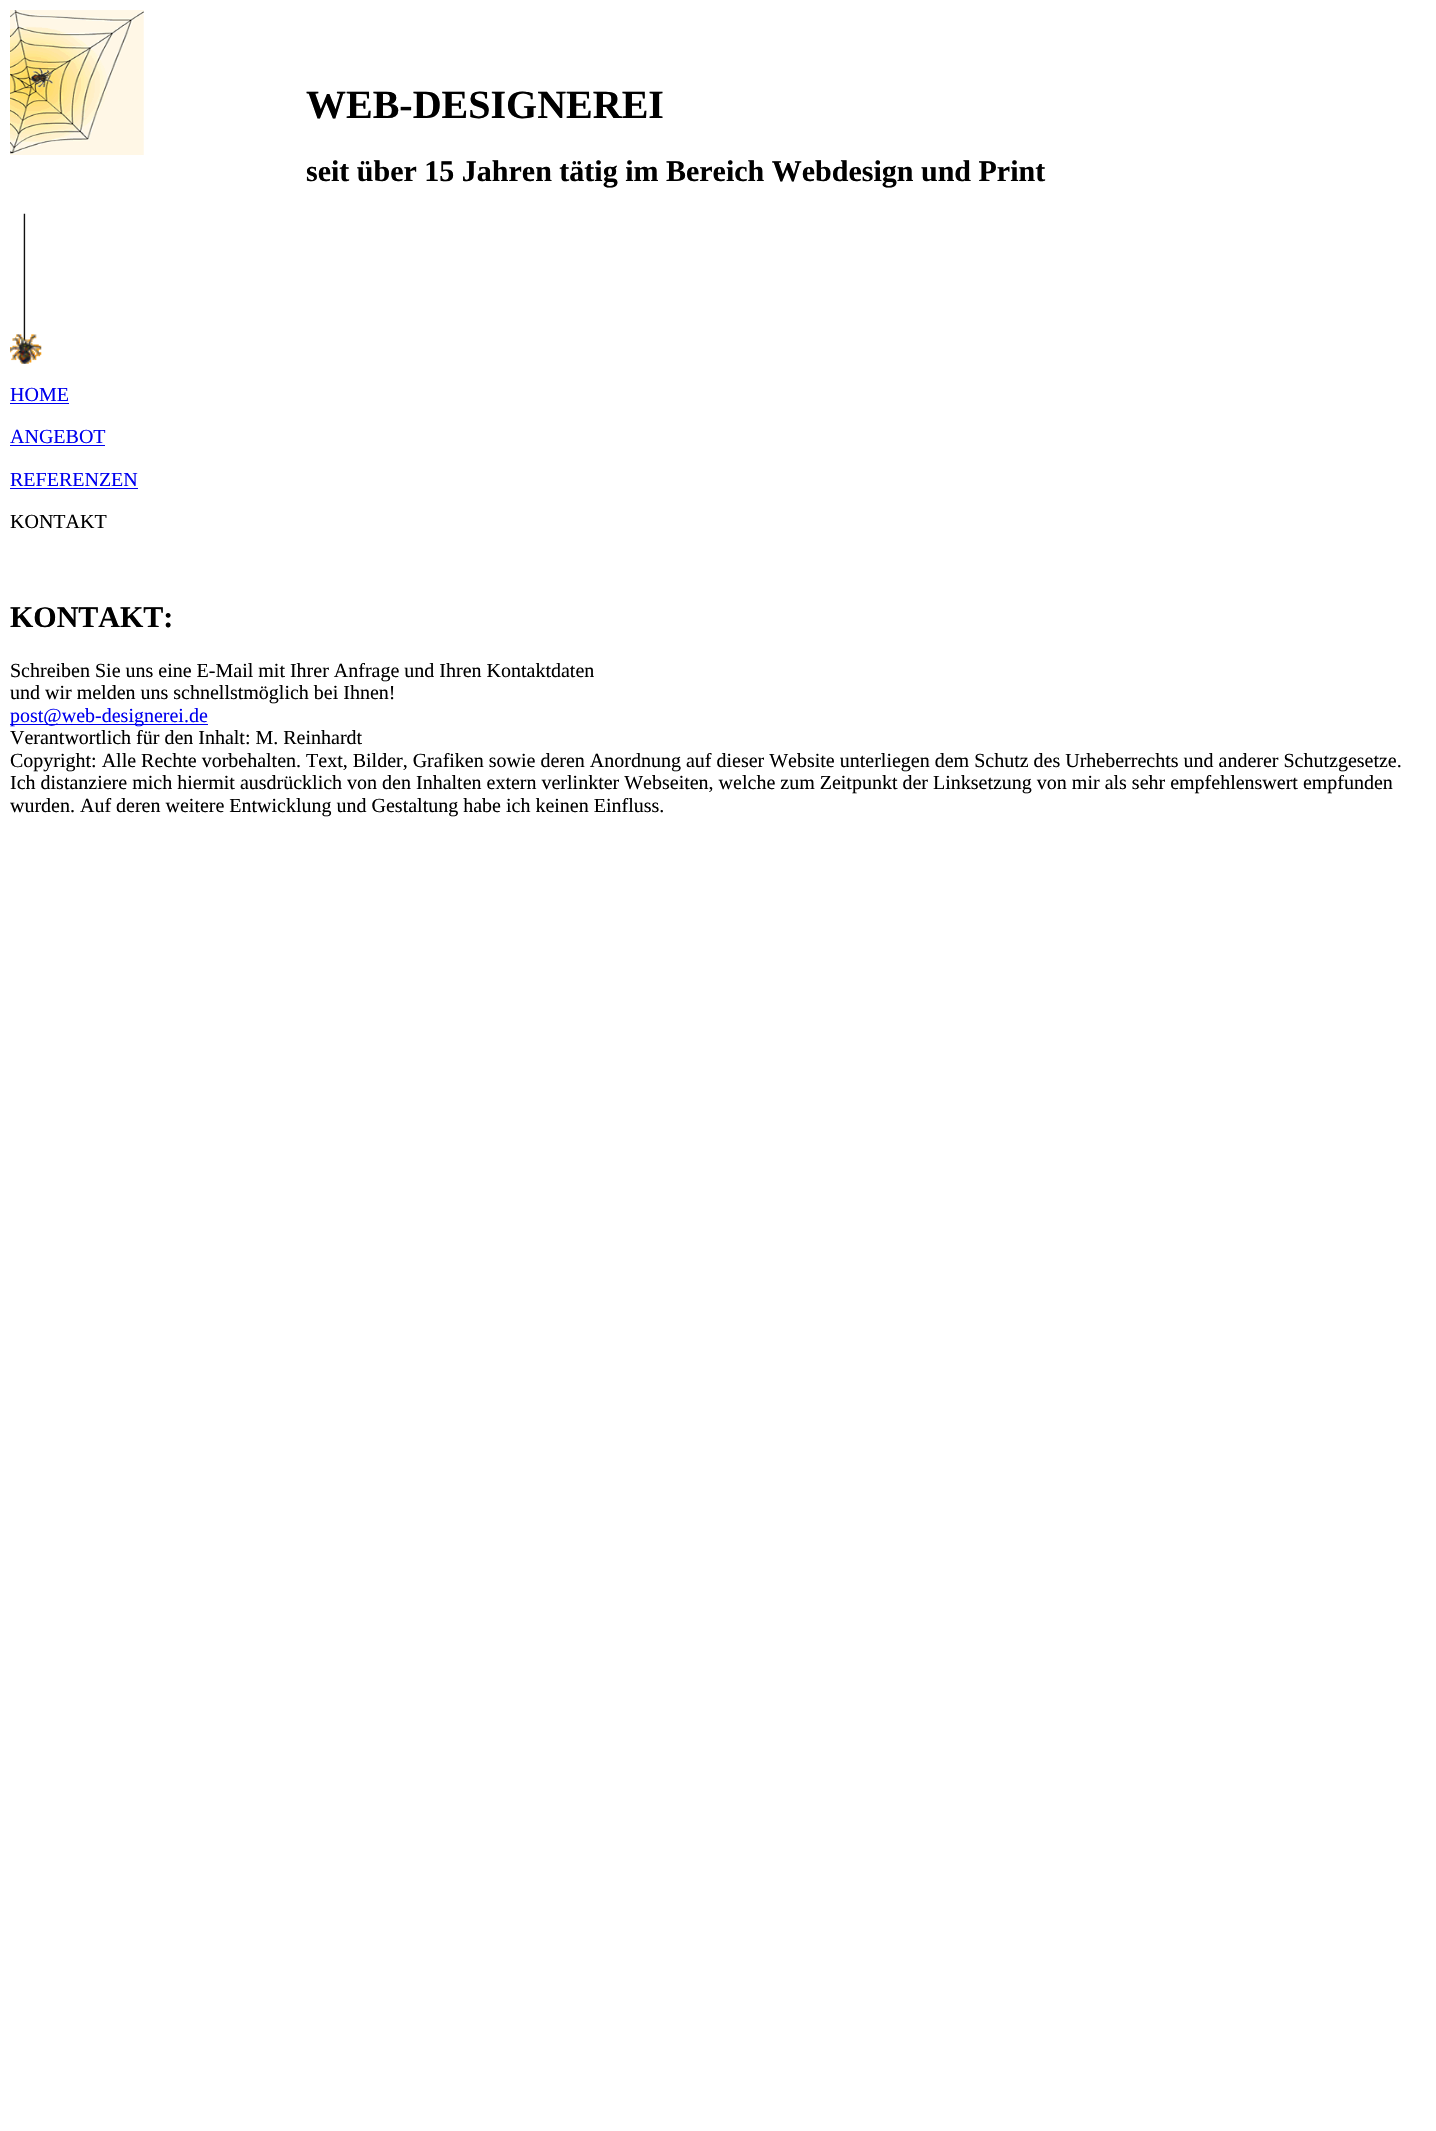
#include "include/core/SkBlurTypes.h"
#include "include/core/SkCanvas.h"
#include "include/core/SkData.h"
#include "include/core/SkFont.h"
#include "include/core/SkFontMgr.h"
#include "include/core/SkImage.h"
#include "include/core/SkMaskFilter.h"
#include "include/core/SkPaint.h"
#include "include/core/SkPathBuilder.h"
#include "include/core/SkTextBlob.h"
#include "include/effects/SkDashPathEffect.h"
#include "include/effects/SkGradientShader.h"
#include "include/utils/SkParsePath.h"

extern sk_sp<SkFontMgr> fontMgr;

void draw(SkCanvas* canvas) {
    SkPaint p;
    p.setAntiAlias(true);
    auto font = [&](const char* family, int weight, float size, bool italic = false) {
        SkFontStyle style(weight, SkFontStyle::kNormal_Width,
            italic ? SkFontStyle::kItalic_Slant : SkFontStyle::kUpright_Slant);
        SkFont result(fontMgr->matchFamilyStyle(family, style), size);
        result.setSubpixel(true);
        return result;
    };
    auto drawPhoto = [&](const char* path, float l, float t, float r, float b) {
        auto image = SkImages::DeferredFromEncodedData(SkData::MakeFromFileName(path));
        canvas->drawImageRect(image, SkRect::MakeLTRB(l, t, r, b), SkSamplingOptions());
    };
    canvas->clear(0xFFFFFFFF);
    drawPhoto("media/1.png", 10, 10, 144, 155);
    auto font1 = font("Liberation Serif", 700, 40);
    p.setColor(0xFF000000);
    canvas->drawString("WEB-DESIGNEREI", 306, 118, font1, p);
    auto font2 = font("Liberation Serif", 700, 30);
    canvas->drawString("seit über 15 Jahren tätig im Bereich Webdesign und Print", 306, 181, font2, p);
    drawPhoto("media/2.png", 10, 213, 42, 364);
    auto font3 = font("Liberation Serif", 400, 20);
    p.setColor(0xFF0000EE);
    canvas->drawString("HOME", 10, 401, font3, p);
    canvas->drawRect(SkRect::MakeLTRB(10, 403, 69, 404), p);
    canvas->drawString("ANGEBOT", 10, 443, font3, p);
    canvas->drawRect(SkRect::MakeLTRB(10, 445, 105, 446), p);
    canvas->drawString("REFERENZEN", 10, 486, font3, p);
    canvas->drawRect(SkRect::MakeLTRB(10, 488, 138, 489), p);
    p.setColor(0xFF000000);
    canvas->drawString("KONTAKT", 10, 528, font3, p);
    canvas->drawString("KONTAKT:", 10, 627, font2, p);
    canvas->drawString("Schreiben Sie uns eine E-Mail mit Ihrer Anfrage und Ihren Kontaktdaten", 10, 677, font3, p);
    canvas->drawString("und wir melden uns schnellstmöglich bei Ihnen!", 10, 699, font3, p);
    p.setColor(0xFF0000EE);
    canvas->drawRect(SkRect::MakeLTRB(10, 724, 208, 725), p);
    canvas->drawString("post@web-designerei.de", 10, 722, font3, p);
    p.setColor(0xFF000000);
    {
        const struct { const char* s; float x, y; } items[] = {
            {"Verantwortlich für den Inhalt: M. Reinhardt", 10, 744},
            {"Copyright: Alle Rechte vorbehalten. Text, Bilder, Grafiken sowie deren Anordnung auf dieser Website unterliegen dem Schutz des Urheberrechts und anderer Schutzgesetze.", 10, 767},
            {"Ich distanziere mich hiermit ausdrücklich von den Inhalten extern verlinkter Webseiten, welche zum Zeitpunkt der Linksetzung von mir als sehr empfehlenswert empfunden", 10, 789},
            {"wurden. Auf deren weitere Entwicklung und Gestaltung habe ich keinen Einfluss.", 10, 812},
        };
        for (auto [s, x, y] : items) {
            canvas->drawString(s, x, y, font3, p);
        }
    }
}
